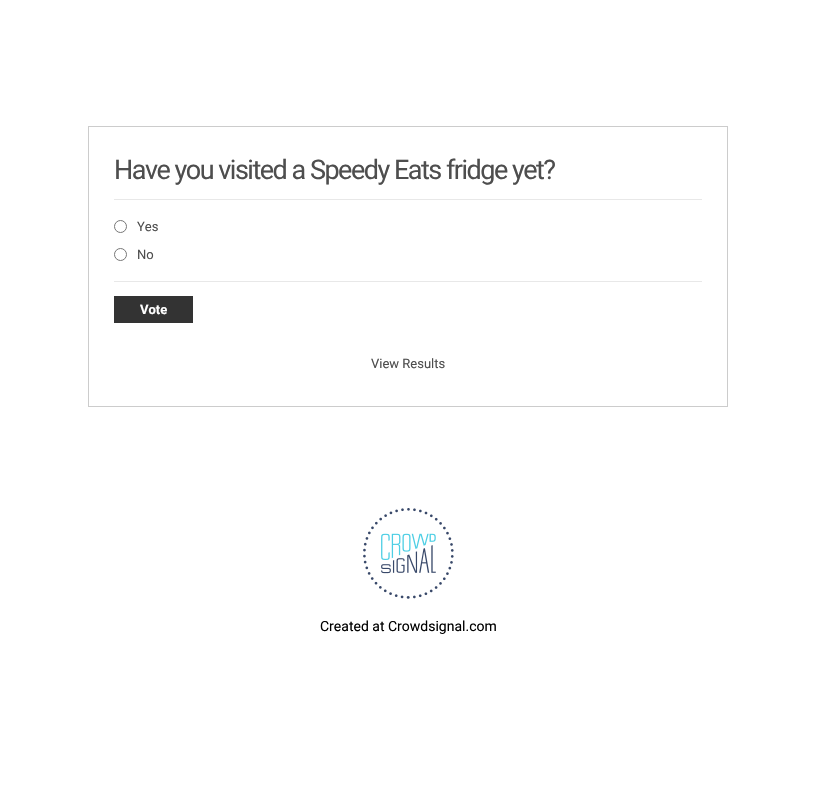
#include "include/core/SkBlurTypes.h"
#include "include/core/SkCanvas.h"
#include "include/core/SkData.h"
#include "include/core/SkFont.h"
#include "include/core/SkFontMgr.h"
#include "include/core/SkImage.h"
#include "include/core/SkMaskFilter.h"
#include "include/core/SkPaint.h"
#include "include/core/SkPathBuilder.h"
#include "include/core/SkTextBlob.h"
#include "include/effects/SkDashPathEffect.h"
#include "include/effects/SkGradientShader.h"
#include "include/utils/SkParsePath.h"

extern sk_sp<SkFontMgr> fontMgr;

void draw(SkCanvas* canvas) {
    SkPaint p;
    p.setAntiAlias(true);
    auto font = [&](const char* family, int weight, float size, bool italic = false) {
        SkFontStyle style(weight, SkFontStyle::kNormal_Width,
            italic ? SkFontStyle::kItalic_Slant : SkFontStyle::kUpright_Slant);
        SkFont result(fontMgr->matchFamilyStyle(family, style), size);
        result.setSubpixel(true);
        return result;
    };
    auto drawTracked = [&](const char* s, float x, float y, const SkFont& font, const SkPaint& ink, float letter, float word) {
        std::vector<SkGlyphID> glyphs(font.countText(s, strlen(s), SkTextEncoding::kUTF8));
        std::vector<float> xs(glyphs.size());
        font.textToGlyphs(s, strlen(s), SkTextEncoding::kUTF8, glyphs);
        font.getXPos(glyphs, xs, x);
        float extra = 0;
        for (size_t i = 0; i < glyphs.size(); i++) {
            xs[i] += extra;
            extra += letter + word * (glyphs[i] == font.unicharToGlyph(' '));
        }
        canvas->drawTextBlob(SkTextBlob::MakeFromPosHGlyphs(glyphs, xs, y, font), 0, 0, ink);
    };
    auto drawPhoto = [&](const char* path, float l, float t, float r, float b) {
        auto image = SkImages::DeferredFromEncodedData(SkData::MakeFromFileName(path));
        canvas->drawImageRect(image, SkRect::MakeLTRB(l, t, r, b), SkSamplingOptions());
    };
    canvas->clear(0xFFFFFFFF);
    p.setStyle(SkPaint::kStroke_Style);
    p.setStrokeWidth(1);
    p.setColor(0xFFCCCCCC);
    canvas->drawRect(SkRect::MakeLTRB(88.5f, 126.5f, 727.5f, 406.5f), p);
    auto font1 = font("Roboto", 400, 27);
    p.setStyle(SkPaint::kFill_Style);
    p.setColor(0xFF4E4E4E);
    drawTracked("Have you visited a Speedy Eats fridge yet?", 114, 179, font1, p, -1.5f, 0);
    p.setColor(0xFFE8E8E8);
    canvas->drawRect(SkRect::MakeLTRB(114, 199, 702, 200), p);
    canvas->drawRect(SkRect::MakeLTRB(114, 281, 702, 282), p);
    p.setStyle(SkPaint::kStroke_Style);
    p.setColor(0xFF767676);
    canvas->drawCircle(120.5f, 226.5f, 6, p);
    auto font2 = font("Roboto", 400, 13);
    p.setStyle(SkPaint::kFill_Style);
    p.setColor(0xFF4E4E4E);
    canvas->drawString("Yes", 137, 231, font2, p);
    p.setStyle(SkPaint::kStroke_Style);
    p.setColor(0xFF767676);
    canvas->drawCircle(120.5f, 254.5f, 6, p);
    p.setStyle(SkPaint::kFill_Style);
    p.setColor(0xFF4E4E4E);
    canvas->drawString("No", 137, 259, font2, p);
    p.setColor(0xFF333333);
    canvas->drawRect(SkRect::MakeLTRB(114, 296, 193, 323), p);
    auto font3 = font("Roboto", 700, 13);
    p.setColor(0xFFFFFFFF);
    canvas->drawString("Vote", 140, 314, font3, p);
    p.setColor(0xFF4E4E4E);
    canvas->drawString("View Results", 371, 368, font2, p);
    drawPhoto("media/1.png", 363, 508, 454, 599);
    auto font4 = font("Roboto", 400, 14);
    p.setColor(0xFF000000);
    canvas->drawString("Created at Crowdsignal.com", 320, 631, font4, p);
}
